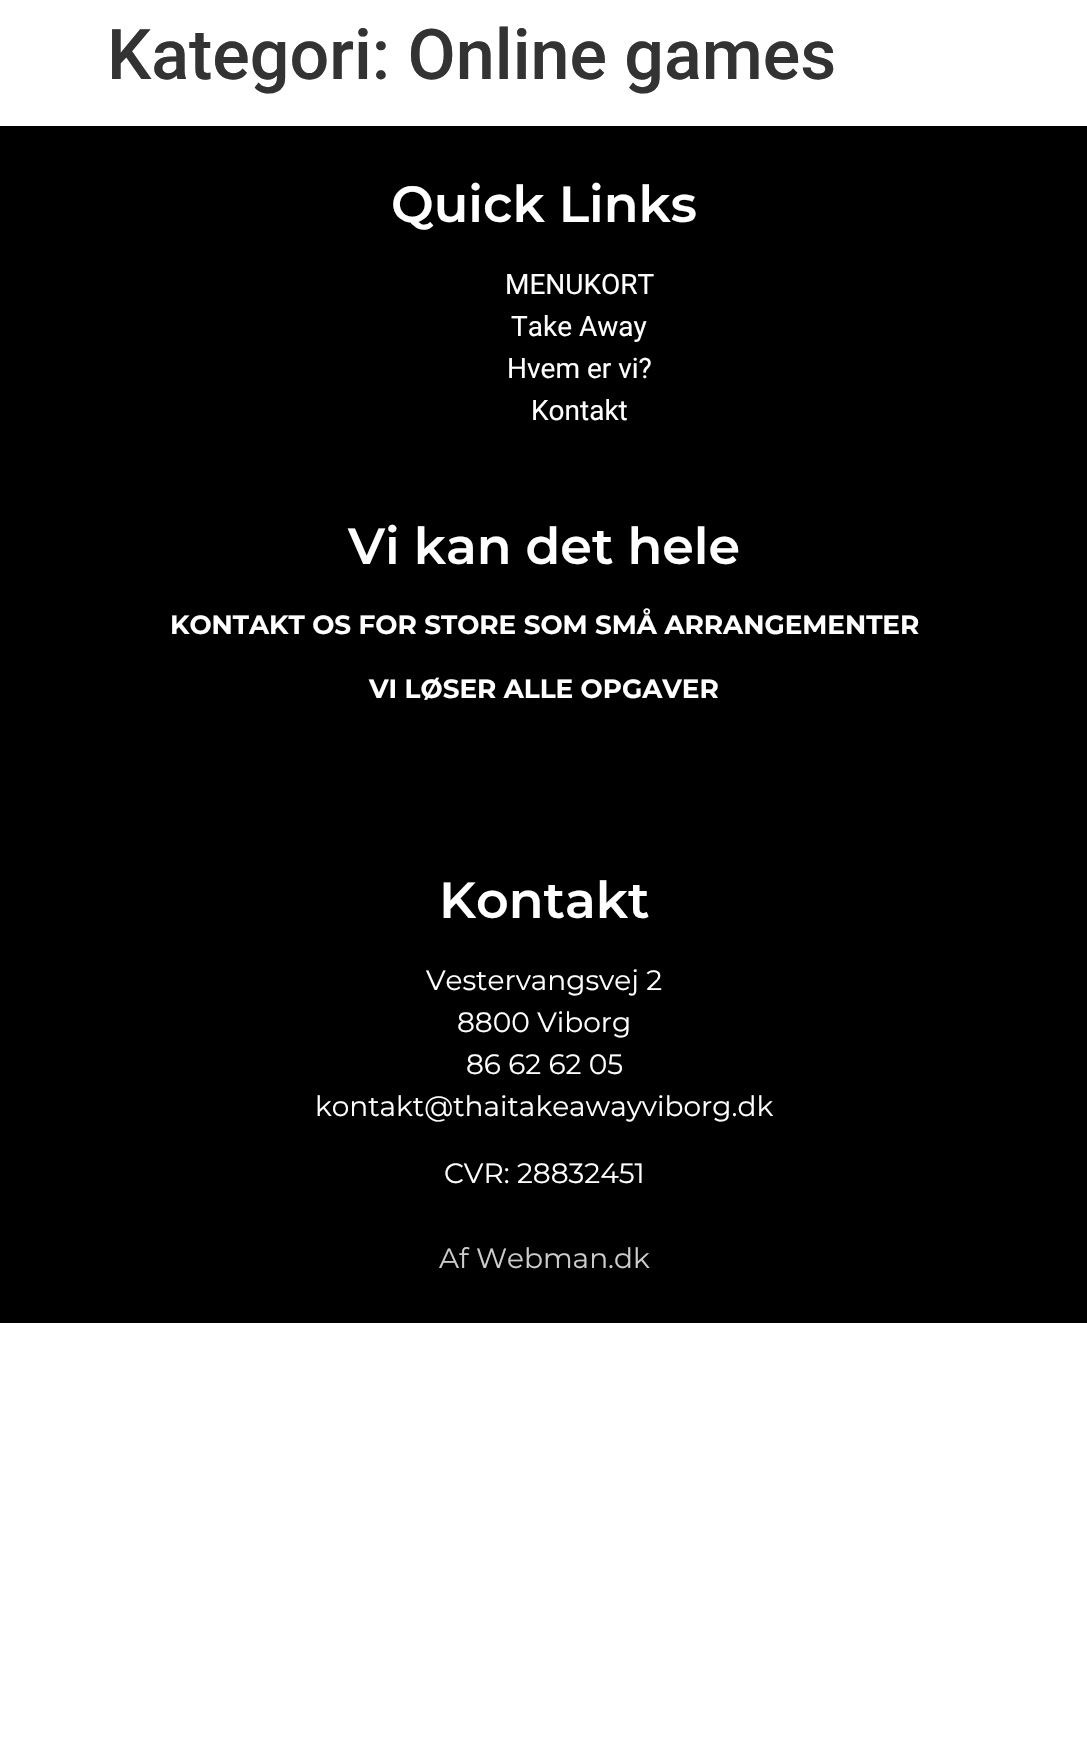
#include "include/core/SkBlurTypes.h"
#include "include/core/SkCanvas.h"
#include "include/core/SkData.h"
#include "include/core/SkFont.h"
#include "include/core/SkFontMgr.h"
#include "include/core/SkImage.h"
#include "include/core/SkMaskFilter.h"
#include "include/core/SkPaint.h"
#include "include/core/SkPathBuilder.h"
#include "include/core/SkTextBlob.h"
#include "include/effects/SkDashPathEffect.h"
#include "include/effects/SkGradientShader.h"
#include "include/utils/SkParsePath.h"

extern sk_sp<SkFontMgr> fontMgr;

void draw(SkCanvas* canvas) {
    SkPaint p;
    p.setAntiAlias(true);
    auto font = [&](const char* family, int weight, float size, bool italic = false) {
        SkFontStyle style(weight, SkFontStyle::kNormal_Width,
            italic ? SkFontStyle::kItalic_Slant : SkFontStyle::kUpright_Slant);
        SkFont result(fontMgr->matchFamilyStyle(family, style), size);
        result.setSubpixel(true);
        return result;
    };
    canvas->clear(0xFFFFFFFF);
    auto font1 = font("Roboto", 500, 70);
    p.setColor(0xFF333333);
    canvas->drawString("Kategori: Online games", 107, 79, font1, p);
    p.setColor(0xFF000000);
    canvas->drawRect(SkRect::MakeLTRB(0, 126, 1087, 1323), p);
    auto font2 = font("Montserrat", 600, 50.75f);
    p.setColor(0xFFFFFFFF);
    canvas->drawString("Quick Links", 391, 222, font2, p);
    auto font3 = font("Roboto", 400, 28);
    {
        const struct { const char* s; float x, y; } items[] = {
            {"MENUKORT", 505, 294},
            {"Take Away", 511, 336},
            {"Hvem er vi?", 507, 378},
            {"Kontakt", 531, 420},
        };
        for (auto [s, x, y] : items) {
            canvas->drawString(s, x, y, font3, p);
        }
    }
    canvas->drawString("Vi kan det hele", 348, 564, font2, p);
    auto font4 = font("Montserrat", 700, 26.25f);
    canvas->drawString("KONTAKT OS FOR STORE SOM SMÅ ARRANGEMENTER", 170, 634, font4, p);
    canvas->drawString("VI LØSER ALLE OPGAVER", 369, 698, font4, p);
    canvas->drawString("Kontakt", 439, 918, font2, p);
    auto font5 = font("Montserrat", 400, 28);
    {
        const struct { const char* s; float x, y; } items[] = {
            {"Vestervangsvej 2", 426, 990},
            {"8800 Viborg", 457, 1032},
            {"86 62 62 05", 466, 1074},
            {"kontakt@thaitakeawayviborg.dk", 315, 1116},
            {"CVR: 28832451", 444, 1183},
        };
        for (auto [s, x, y] : items) {
            canvas->drawString(s, x, y, font5, p);
        }
    }
    p.setColor(0xFFCCCCCC);
    canvas->drawString("Af Webman.dk", 439, 1268, font5, p);
}
